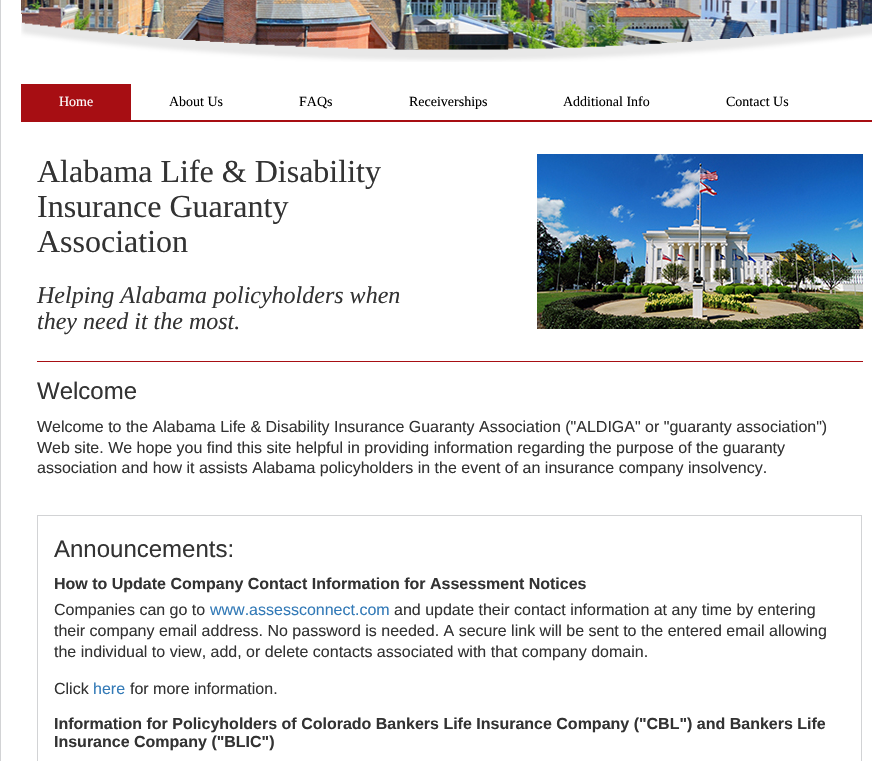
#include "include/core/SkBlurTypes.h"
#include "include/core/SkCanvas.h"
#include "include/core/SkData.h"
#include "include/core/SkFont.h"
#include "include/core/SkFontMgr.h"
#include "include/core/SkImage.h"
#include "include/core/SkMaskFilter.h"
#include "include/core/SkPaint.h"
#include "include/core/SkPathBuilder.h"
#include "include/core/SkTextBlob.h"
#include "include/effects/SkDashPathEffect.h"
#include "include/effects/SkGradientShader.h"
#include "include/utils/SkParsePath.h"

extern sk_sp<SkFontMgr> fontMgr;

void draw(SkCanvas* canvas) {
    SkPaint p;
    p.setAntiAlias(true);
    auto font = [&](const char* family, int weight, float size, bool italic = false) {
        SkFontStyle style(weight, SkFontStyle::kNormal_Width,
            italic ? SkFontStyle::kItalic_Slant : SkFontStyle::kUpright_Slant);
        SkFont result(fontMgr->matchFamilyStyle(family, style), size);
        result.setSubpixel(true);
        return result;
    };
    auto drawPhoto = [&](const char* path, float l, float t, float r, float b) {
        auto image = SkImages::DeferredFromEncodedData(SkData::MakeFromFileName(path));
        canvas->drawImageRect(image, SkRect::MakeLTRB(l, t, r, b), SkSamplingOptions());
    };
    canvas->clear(0xFFFFFFFF);
    p.setStyle(SkPaint::kStroke_Style);
    p.setStrokeWidth(1);
    p.setColor(0xFFD2D3D5);
    canvas->drawRect(SkRect::MakeLTRB(0.5f, -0.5f, 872.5f, 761.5f), p);
    drawPhoto("media/1.png", 21, 0, 872, 50);
    drawPhoto("media/2.png", 21, 14, 872, 62);
    p.setStyle(SkPaint::kFill_Style);
    p.setColor(0xFFA70E13);
    canvas->drawRect(SkRect::MakeLTRB(21, 120, 872, 122), p);
    canvas->drawRect(SkRect::MakeLTRB(21, 84, 131, 120), p);
    auto font1 = font("Liberation Serif", 400, 14);
    p.setColor(0xFFFFFFFF);
    canvas->drawString("Home", 59, 106, font1, p);
    p.setColor(0xFF000000);
    {
        const struct { const char* s; float x, y; } items[] = {
            {"About Us", 169, 106},
            {"FAQs", 299, 106},
            {"Receiverships", 409, 106},
            {"Additional Info", 563, 106},
            {"Contact Us", 726, 106},
        };
        for (auto [s, x, y] : items) {
            canvas->drawString(s, x, y, font1, p);
        }
    }
    auto font2 = font("Liberation Serif", 400, 32);
    p.setColor(0xFF333333);
    {
        const struct { const char* s; float x, y; } items[] = {
            {"Alabama Life & Disability", 37, 182},
            {"Insurance Guaranty", 37, 217},
            {"Association", 37, 252},
        };
        for (auto [s, x, y] : items) {
            canvas->drawString(s, x, y, font2, p);
        }
    }
    drawPhoto("media/3.png", 537, 154, 863, 329);
    auto font3 = font("Liberation Serif", 400, 24, true);
    canvas->drawString("Helping Alabama policyholders when", 37, 303, font3, p);
    canvas->drawString("they need it the most.", 37, 329, font3, p);
    p.setColor(0xFFA70E13);
    canvas->drawRect(SkRect::MakeLTRB(37, 361, 863, 362), p);
    auto font4 = font("Liberation Sans", 400, 24);
    p.setColor(0xFF333333);
    canvas->drawString("Welcome", 37, 399, font4, p);
    auto font5 = font("Liberation Sans", 400, 16);
    {
        const struct { const char* s; float x, y; } items[] = {
            {"Welcome to the Alabama Life & Disability Insurance Guaranty Association (\"ALDIGA\" or \"guaranty association\")", 37, 432},
            {"Web site. We hope you find this site helpful in providing information regarding the purpose of the guaranty", 37, 453},
            {"association and how it assists Alabama policyholders in the event of an insurance company insolvency.", 37, 473},
        };
        for (auto [s, x, y] : items) {
            canvas->drawString(s, x, y, font5, p);
        }
    }
    p.setStyle(SkPaint::kStroke_Style);
    p.setColor(0xFFD2D3D5);
    canvas->drawRect(SkRect::MakeLTRB(37.5f, 515.5f, 861.5f, 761.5f), p);
    p.setStyle(SkPaint::kFill_Style);
    p.setColor(0xFF333333);
    canvas->drawString("Announcements:", 54, 557, font4, p);
    auto font6 = font("Liberation Sans", 700, 16);
    canvas->drawString("How to Update Company Contact Information for Assessment Notices", 54, 589, font6, p);
    canvas->drawString("Companies can go to", 54, 615, font5, p);
    p.setColor(0xFF337AB7);
    canvas->drawString("www.assessconnect.com", 210, 615, font5, p);
    p.setColor(0xFF333333);
    {
        const struct { const char* s; float x, y; } items[] = {
            {"and update their contact information at any time by entering", 394, 615},
            {"their company email address. No password is needed. A secure link will be sent to the entered email allowing", 54, 636},
            {"the individual to view, add, or delete contacts associated with that company domain.", 54, 657},
            {"Click", 54, 694},
        };
        for (auto [s, x, y] : items) {
            canvas->drawString(s, x, y, font5, p);
        }
    }
    p.setColor(0xFF337AB7);
    canvas->drawString("here", 93, 694, font5, p);
    p.setColor(0xFF333333);
    canvas->drawString("for more information.", 130, 694, font5, p);
    canvas->drawString("Information for Policyholders of Colorado Bankers Life Insurance Company (\"CBL\") and Bankers Life", 54, 729, font6, p);
    canvas->drawString("Insurance Company (\"BLIC\")", 54, 747, font6, p);
}
